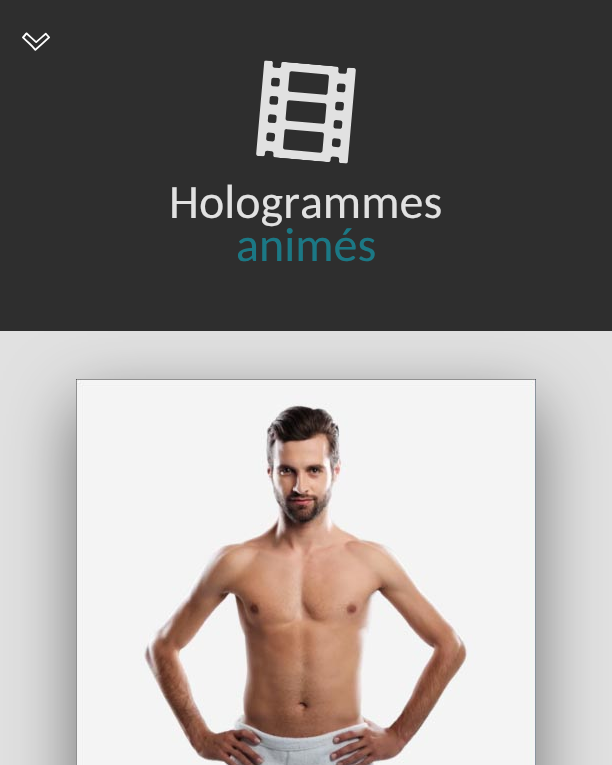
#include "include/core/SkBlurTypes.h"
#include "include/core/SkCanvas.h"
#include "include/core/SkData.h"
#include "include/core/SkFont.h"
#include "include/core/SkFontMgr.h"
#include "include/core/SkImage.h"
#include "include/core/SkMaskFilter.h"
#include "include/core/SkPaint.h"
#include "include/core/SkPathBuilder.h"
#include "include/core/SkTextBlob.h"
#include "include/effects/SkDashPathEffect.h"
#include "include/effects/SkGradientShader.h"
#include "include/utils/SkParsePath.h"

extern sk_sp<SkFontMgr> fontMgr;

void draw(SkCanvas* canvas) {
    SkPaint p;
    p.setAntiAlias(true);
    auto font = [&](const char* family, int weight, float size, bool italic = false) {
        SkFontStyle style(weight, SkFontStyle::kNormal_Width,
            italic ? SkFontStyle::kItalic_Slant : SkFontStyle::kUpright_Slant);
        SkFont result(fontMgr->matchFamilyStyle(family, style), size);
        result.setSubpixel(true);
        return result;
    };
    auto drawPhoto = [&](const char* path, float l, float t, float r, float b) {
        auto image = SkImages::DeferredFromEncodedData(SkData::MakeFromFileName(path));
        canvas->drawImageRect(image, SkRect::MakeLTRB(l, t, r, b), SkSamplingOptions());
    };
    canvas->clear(0xFFE1E1E1);
    p.setColor(0xFF2E2E2E);
    canvas->drawRect(SkRect::MakeLTRB(0, 0, 612, 331), p);
    drawPhoto("media/1.png", 22, 32, 50, 51);
    drawPhoto("media/2.png", 256, 60, 356, 164);
    auto font1 = font("Carlito", 400, 48);
    p.setColor(0xFFE1E1E1);
    canvas->drawString("Hologrammes", 169, 218, font1, p);
    p.setColor(0xFF1B7885);
    canvas->drawString("animés", 236, 261, font1, p);
    p.setColor(0x80000000);
    p.setMaskFilter(SkMaskFilter::MakeBlur(kNormal_SkBlurStyle, 32));
    canvas->drawRect(SkRect::MakeLTRB(76, 403, 536, 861), p);
    p.setMaskFilter(nullptr);
    drawPhoto("media/3.png", 76, 379, 536, 765);
}
